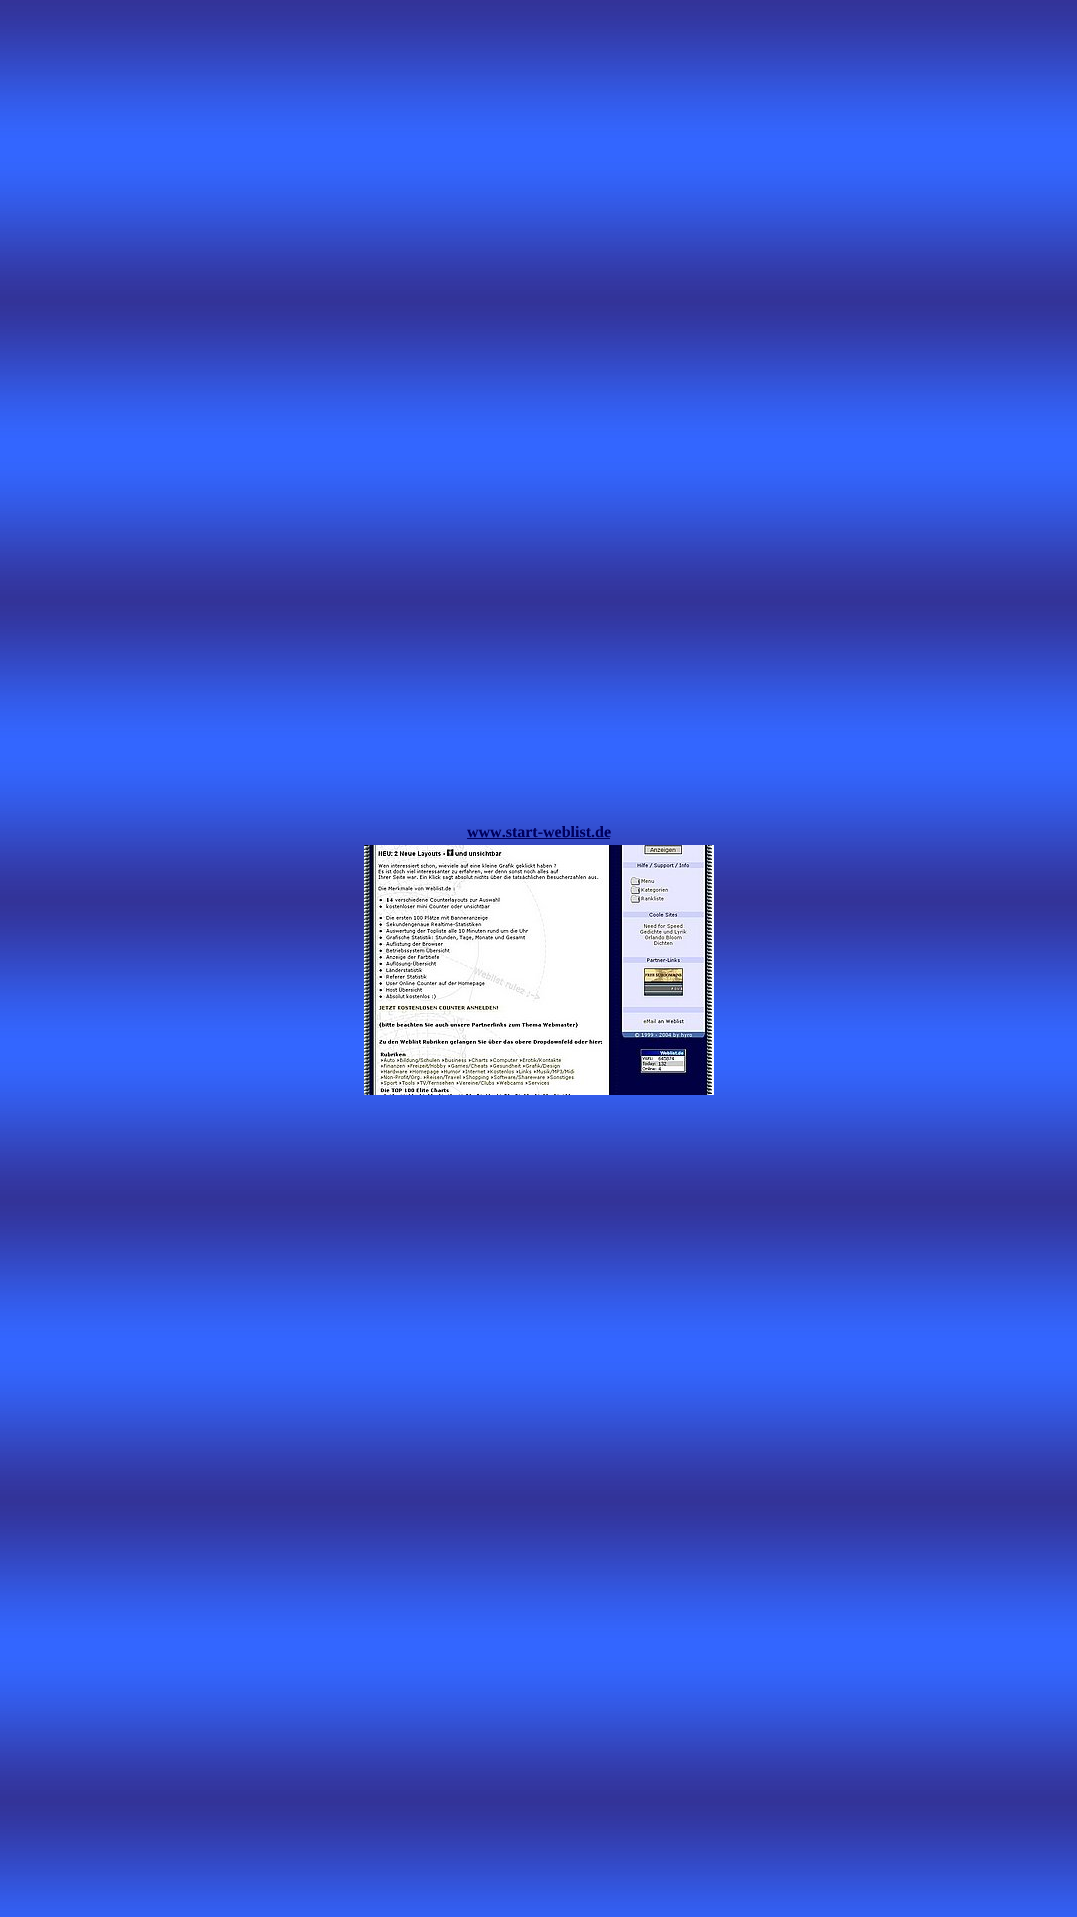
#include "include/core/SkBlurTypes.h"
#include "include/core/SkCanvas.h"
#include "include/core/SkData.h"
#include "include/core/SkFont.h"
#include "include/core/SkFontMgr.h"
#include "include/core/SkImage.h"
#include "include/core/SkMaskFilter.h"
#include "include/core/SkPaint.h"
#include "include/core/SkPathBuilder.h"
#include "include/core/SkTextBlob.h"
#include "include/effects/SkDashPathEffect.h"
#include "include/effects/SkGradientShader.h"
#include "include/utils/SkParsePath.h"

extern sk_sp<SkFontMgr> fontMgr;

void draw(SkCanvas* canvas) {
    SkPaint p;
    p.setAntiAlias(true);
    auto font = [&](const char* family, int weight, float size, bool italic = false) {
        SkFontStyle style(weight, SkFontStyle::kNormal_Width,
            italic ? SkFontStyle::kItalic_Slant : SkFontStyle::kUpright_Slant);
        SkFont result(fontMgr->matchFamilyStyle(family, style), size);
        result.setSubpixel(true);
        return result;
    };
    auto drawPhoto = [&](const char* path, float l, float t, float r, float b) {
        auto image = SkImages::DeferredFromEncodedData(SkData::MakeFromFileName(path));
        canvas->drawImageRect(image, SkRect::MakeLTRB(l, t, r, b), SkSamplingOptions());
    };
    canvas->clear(0xFFFFFFFF);
    drawPhoto("media/1.png", 0, 0, 1077, 1917);
    auto font1 = font("Liberation Serif", 700, 16);
    p.setColor(0xFF00005F);
    canvas->drawString("www.start-weblist.de", 467, 837, font1, p);
    canvas->drawRect(SkRect::MakeLTRB(467, 838, 610, 839), p);
    drawPhoto("media/2.png", 364, 845, 714, 1095);
}
